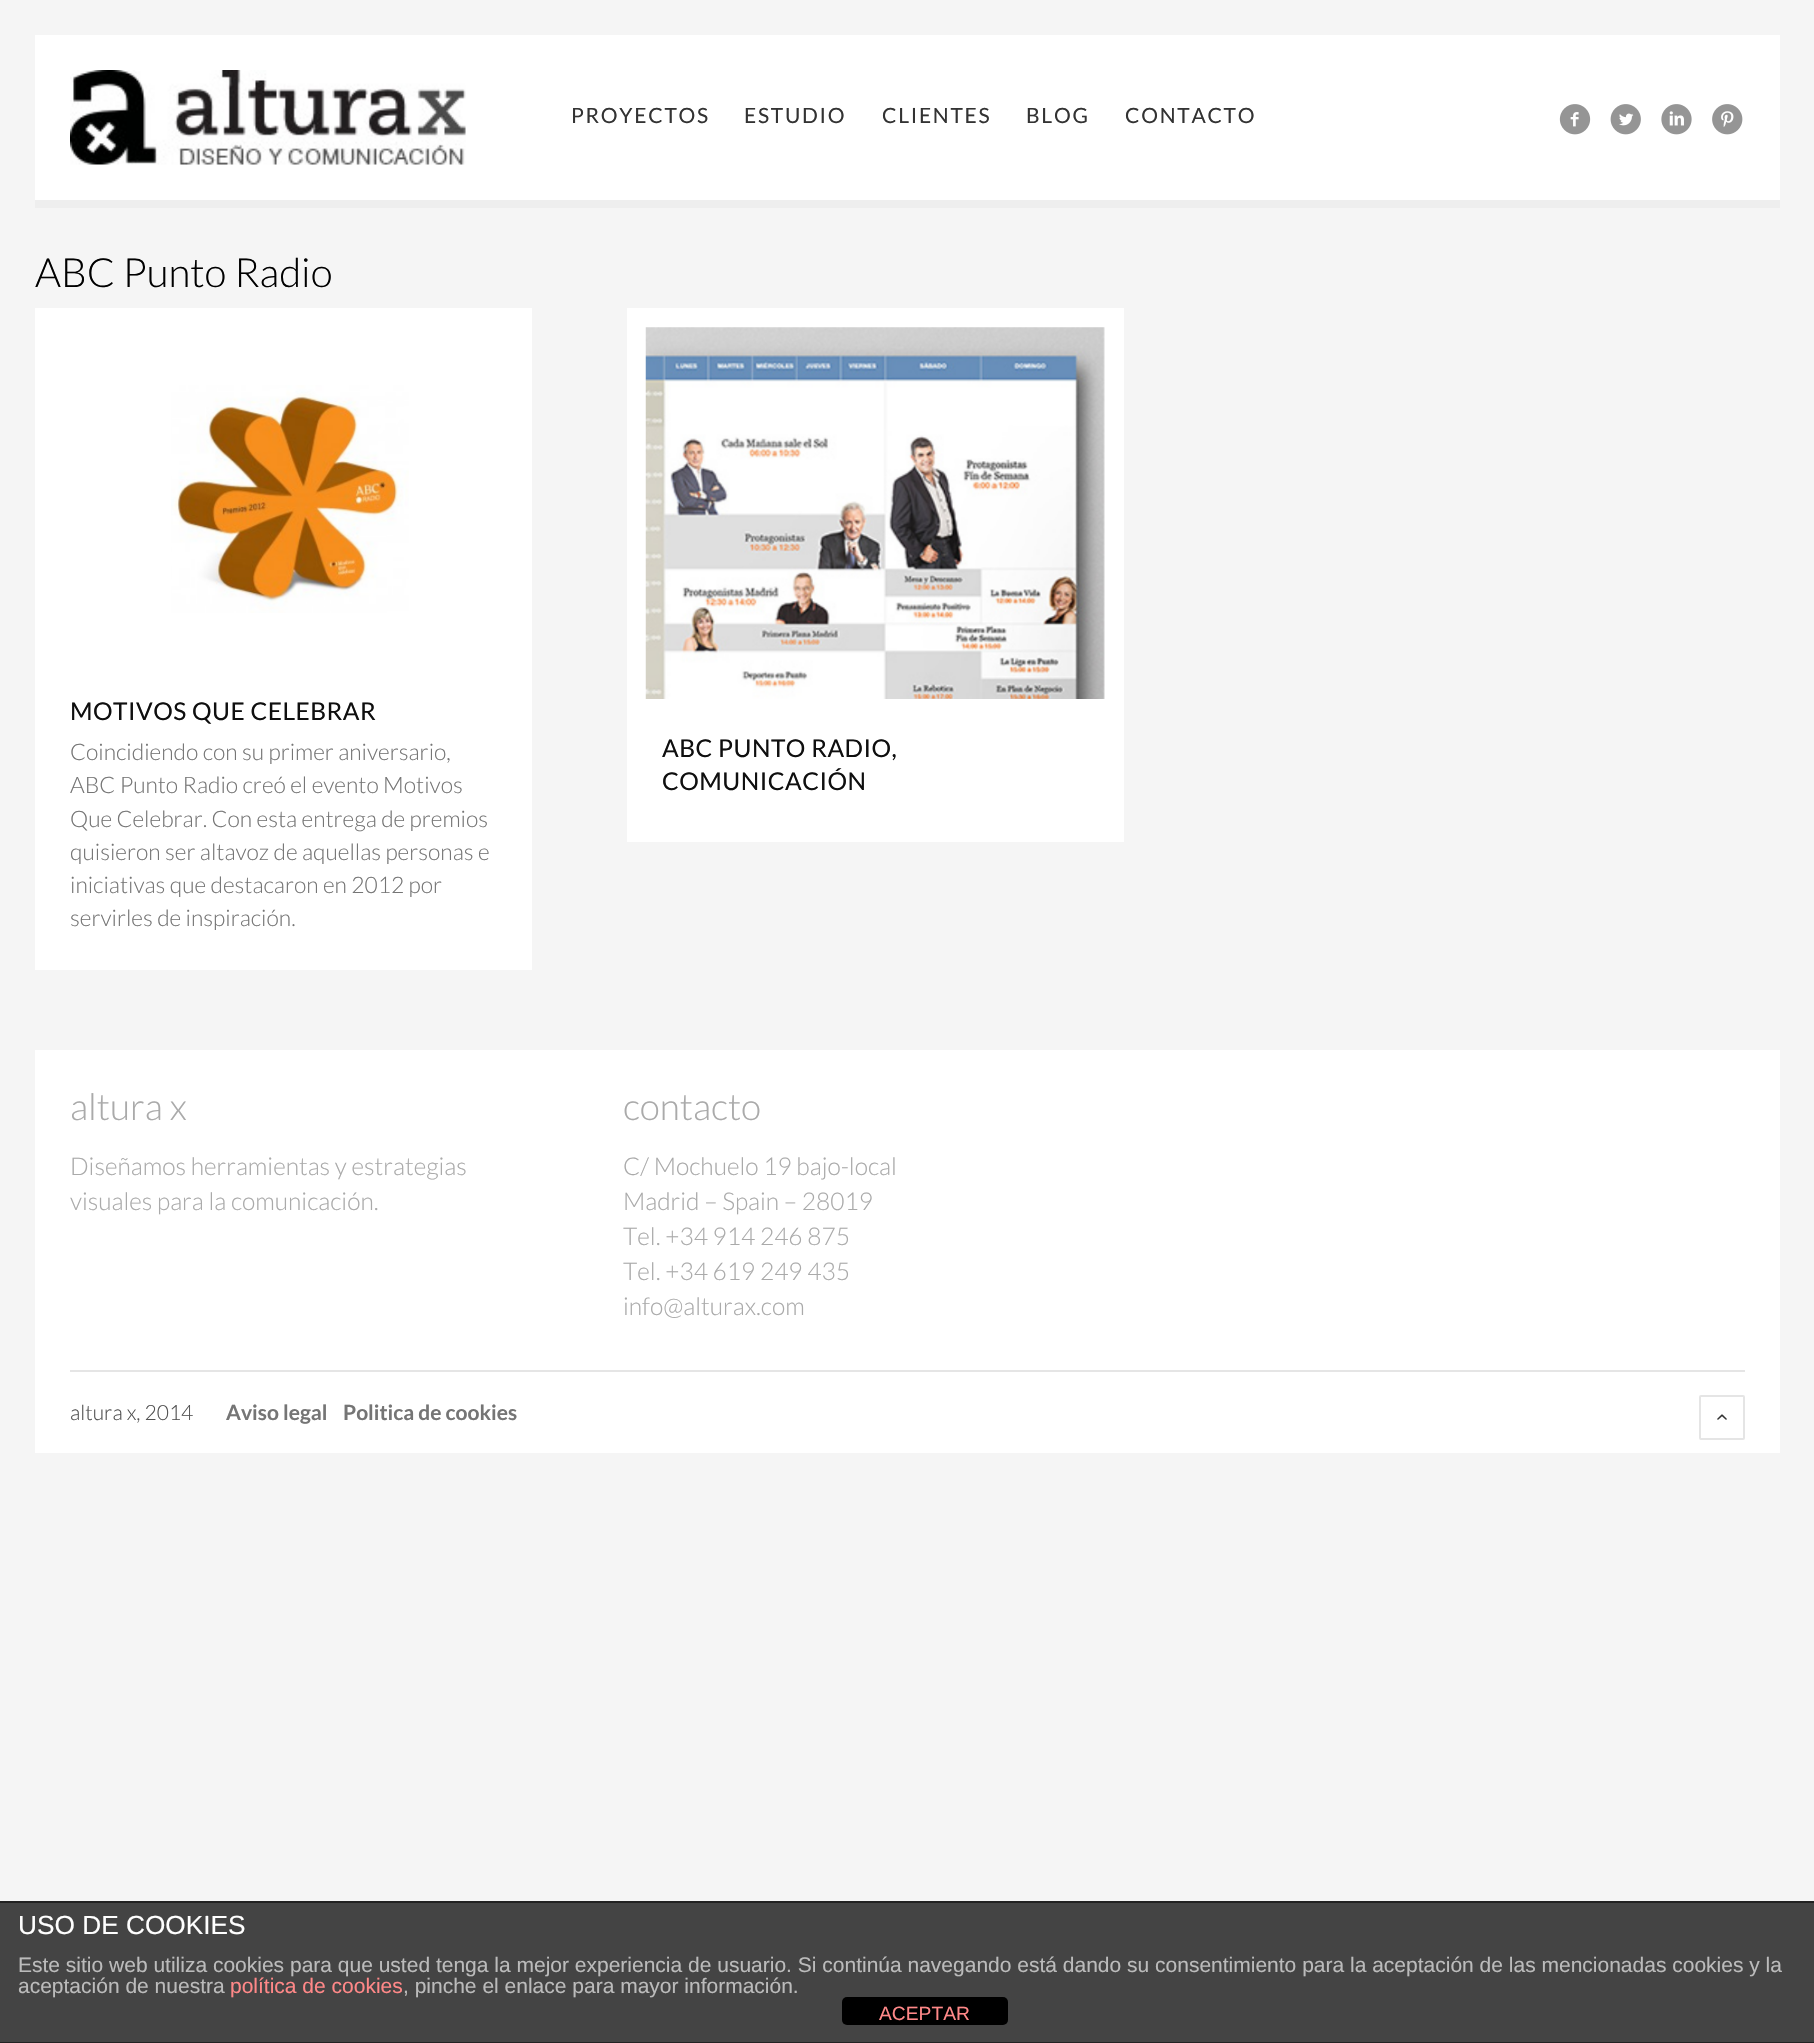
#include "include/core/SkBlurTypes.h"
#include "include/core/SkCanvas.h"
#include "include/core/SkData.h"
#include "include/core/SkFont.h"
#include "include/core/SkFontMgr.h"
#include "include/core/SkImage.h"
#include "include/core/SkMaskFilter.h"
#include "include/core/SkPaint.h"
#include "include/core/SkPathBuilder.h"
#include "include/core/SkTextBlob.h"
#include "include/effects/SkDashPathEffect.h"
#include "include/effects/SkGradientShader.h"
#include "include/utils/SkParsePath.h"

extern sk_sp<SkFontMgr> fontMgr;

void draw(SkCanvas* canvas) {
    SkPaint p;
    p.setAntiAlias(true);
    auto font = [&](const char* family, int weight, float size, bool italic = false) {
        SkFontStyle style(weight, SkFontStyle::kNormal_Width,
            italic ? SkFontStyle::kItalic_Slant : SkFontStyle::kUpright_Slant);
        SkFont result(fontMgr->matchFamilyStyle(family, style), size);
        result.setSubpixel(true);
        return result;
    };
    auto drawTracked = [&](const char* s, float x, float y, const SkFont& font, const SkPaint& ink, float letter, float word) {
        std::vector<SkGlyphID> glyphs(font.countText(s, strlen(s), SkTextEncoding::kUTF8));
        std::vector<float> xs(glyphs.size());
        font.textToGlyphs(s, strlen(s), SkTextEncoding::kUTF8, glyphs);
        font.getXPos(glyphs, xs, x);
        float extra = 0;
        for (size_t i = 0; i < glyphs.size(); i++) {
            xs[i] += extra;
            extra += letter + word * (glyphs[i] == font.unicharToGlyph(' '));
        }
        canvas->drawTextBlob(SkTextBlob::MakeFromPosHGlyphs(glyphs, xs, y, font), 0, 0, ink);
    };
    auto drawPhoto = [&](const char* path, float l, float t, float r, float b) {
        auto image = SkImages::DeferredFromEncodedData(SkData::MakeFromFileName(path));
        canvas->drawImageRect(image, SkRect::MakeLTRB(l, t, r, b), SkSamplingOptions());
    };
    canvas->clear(0xFFF5F5F5);
    p.setColor(0xFFFFFFFF);
    canvas->drawRect(SkRect::MakeLTRB(35, 35, 1780, 200), p);
    p.setColor(0xFFEEEEEE);
    canvas->drawRect(SkRect::MakeLTRB(35, 200, 1780, 208), p);
    drawPhoto("media/1.png", 70, 70, 466, 165);
    auto font1 = font("Lato", 400, 21);
    p.setColor(0xFF333333);
    {
        const struct { const char* s; float x, y; } items[] = {
            {"PROYECTOS", 571, 123},
            {"ESTUDIO", 744, 123},
            {"CLIENTES", 882, 123},
            {"BLOG", 1026, 123},
            {"CONTACTO", 1125, 123},
        };
        for (auto [s, x, y] : items) {
            drawTracked(s, x, y, font1, p, 1.75f, 0);
        }
    }
    drawPhoto("media/2.png", 1559, 104, 1591, 135);
    drawPhoto("media/3.png", 1610, 104, 1641, 135);
    drawPhoto("media/4.png", 1661, 104, 1692, 135);
    drawPhoto("media/5.png", 1712, 104, 1743, 135);
    auto font2 = font("Lato", 300, 40.25f);
    p.setColor(0xFF000000);
    canvas->drawString("ABC Punto Radio", 35, 287, font2, p);
    p.setColor(0xFFFFFFFF);
    canvas->drawRect(SkRect::MakeLTRB(35, 308, 532, 970), p);
    drawPhoto("media/6.png", 171, 385, 409, 613);
    auto font3 = font("Lato", 400, 24.5f);
    p.setColor(0xFF0F0F0F);
    drawTracked("MOTIVOS QUE CELEBRAR", 70, 720, font3, p, 0.5f, 0);
    auto font4 = font("Lato", 300, 22.75f);
    p.setColor(0xFF757575);
    {
        const struct { const char* s; float x, y; } items[] = {
            {"Coincidiendo con su primer aniversario,", 70, 760},
            {"ABC Punto Radio creó el evento Motivos", 70, 793},
            {"Que Celebrar. Con esta entrega de premios", 70, 827},
            {"quisieron ser altavoz de aquellas personas e", 70, 860},
            {"iniciativas que destacaron en 2012 por", 70, 893},
            {"servirles de inspiración.", 70, 926},
        };
        for (auto [s, x, y] : items) {
            canvas->drawString(s, x, y, font4, p);
        }
    }
    p.setColor(0xFFFFFFFF);
    canvas->drawRect(SkRect::MakeLTRB(627, 308, 1124, 842), p);
    drawPhoto("media/7.png", 645, 327, 1105, 699);
    p.setColor(0xFF0F0F0F);
    drawTracked("ABC PUNTO RADIO,", 662, 757, font3, p, 0.5f, 0);
    drawTracked("COMUNICACIÓN", 662, 790, font3, p, 0.5f, 0);
    p.setColor(0xFFFFFFFF);
    canvas->drawRect(SkRect::MakeLTRB(35, 1050, 1780, 1453), p);
    auto font5 = font("Lato", 300, 37);
    p.setColor(0xFFAAAAAA);
    canvas->drawString("altura x", 70, 1120, font5, p);
    auto font6 = font("Lato", 300, 24.5f);
    canvas->drawString("Diseñamos herramientas y estrategias", 70, 1175, font6, p);
    canvas->drawString("visuales para la comunicación.", 70, 1210, font6, p);
    canvas->drawString("contacto", 623, 1120, font5, p);
    {
        const struct { const char* s; float x, y; } items[] = {
            {"C/ Mochuelo 19 bajo-local", 623, 1175},
            {"Madrid – Spain – 28019", 623, 1210},
            {"Tel. +34 914 246 875", 623, 1245},
            {"Tel. +34 619 249 435", 623, 1280},
            {"info@alturax.com", 623, 1315},
        };
        for (auto [s, x, y] : items) {
            canvas->drawString(s, x, y, font6, p);
        }
    }
    p.setColor(0xFFE5E5E5);
    canvas->drawRect(SkRect::MakeLTRB(70, 1370, 1745, 1372), p);
    auto font7 = font("Lato", 300, 21);
    p.setColor(0xFF515151);
    canvas->drawString("altura x, 2014", 70, 1420, font7, p);
    auto font8 = font("Lato", 700, 21);
    p.setColor(0xFF757575);
    canvas->drawString("Aviso legal", 226, 1420, font8, p);
    canvas->drawString("Politica de cookies", 343, 1420, font8, p);
    p.setStyle(SkPaint::kStroke_Style);
    p.setStrokeWidth(2);
    p.setColor(0xFFE5E5E5);
    canvas->drawRoundRect(SkRect::MakeLTRB(1700, 1396, 1744, 1439), 1, 1, p);
    drawPhoto("media/8.png", 1717, 1414, 1727, 1420);
    p.setStyle(SkPaint::kFill_Style);
    {
        const struct { float l, t, r, b; SkColor color; } items[] = {
            {0, 1903, 1814, 2042, 0xFF444444},
            {0, 1901, 1814, 1903, 0xFF222222},
            {0, 2042, 1814, 2043, 0xFF222222},
        };
        for (auto [l, t, r, b, color] : items) {
            p.setColor(color);
            canvas->drawRect(SkRect::MakeLTRB(l, t, r, b), p);
        }
    }
    auto font9 = font("Liberation Sans", 400, 26.25f);
    p.setColor(0xFFFFFFFF);
    canvas->drawString("USO DE COOKIES", 18, 1934, font9, p);
    auto font10 = font("Liberation Sans", 400, 21);
    p.setColor(0xFFBBBBBB);
    canvas->drawString("Este sitio web utiliza cookies para que usted tenga la mejor experiencia de usuario. Si continúa navegando está dando su consentimiento para la aceptación de las mencionadas cookies y la", 18, 1972, font10, p);
    canvas->drawString("aceptación de nuestra", 18, 1993, font10, p);
    p.setColor(0xFFFF8888);
    canvas->drawString("política de cookies", 230, 1993, font10, p);
    p.setColor(0xFFBBBBBB);
    canvas->drawString(", pinche el enlace para mayor información.", 403, 1993, font10, p);
    p.setColor(0xFF000000);
    canvas->drawRoundRect(SkRect::MakeLTRB(842, 1997, 1008, 2025), 5, 5, p);
    auto font11 = font("Liberation Sans", 400, 19.25f);
    p.setColor(0xFFFF8888);
    canvas->drawString("ACEPTAR", 879, 2020, font11, p);
}
